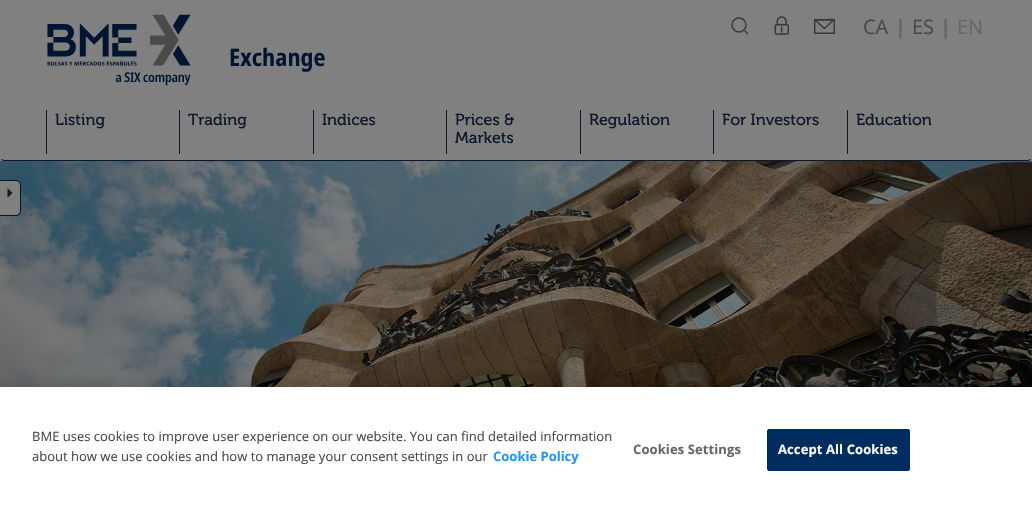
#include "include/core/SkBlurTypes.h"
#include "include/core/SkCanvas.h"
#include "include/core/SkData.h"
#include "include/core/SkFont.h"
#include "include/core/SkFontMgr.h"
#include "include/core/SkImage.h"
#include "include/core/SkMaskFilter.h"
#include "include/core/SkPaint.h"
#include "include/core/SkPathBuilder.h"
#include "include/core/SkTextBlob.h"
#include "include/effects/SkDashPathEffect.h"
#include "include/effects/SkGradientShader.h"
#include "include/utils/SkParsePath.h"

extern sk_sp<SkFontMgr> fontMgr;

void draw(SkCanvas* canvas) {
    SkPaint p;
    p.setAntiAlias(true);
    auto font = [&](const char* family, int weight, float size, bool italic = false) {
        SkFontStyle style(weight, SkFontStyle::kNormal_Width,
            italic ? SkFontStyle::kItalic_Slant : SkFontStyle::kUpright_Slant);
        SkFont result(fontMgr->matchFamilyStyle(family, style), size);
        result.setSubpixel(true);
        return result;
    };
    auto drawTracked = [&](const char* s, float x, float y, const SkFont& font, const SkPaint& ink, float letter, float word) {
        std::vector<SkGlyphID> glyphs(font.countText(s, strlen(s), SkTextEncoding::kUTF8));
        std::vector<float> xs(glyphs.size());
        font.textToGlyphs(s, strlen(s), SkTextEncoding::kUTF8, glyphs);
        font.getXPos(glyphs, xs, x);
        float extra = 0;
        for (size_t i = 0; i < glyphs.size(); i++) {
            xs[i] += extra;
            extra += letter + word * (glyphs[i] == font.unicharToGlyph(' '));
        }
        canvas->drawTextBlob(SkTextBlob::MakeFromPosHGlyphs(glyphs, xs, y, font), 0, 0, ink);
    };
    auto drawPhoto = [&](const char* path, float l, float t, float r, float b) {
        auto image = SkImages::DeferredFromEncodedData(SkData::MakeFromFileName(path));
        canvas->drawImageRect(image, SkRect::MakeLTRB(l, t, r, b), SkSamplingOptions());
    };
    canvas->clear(0xFF808080);
    p.setColor(0xFF0D162B);
    canvas->drawPath(SkPathBuilder().moveTo(4, 161).lineTo(1028, 161).lineTo(1031, 160).lineTo(1030, 159).lineTo(1028, 160).lineTo(4, 160).lineTo(2, 159).lineTo(1, 160).close().detach(), p);
    p.setStyle(SkPaint::kStroke_Style);
    p.setStrokeWidth(1.5f);
    p.setColor(0xFF393939);
    canvas->drawCircle(739, 25, 7, p);
    p.setStrokeCap(SkPaint::kRound_Cap);
    p.setStrokeJoin(SkPaint::kRound_Join);
    canvas->drawPath(SkPathBuilder().moveTo(745, 31).lineTo(747.5f, 33.5f).detach(), p);
    drawPhoto("media/1.png", 774, 16, 789, 35);
    p.setStrokeCap(SkPaint::kButt_Cap);
    p.setStrokeJoin(SkPaint::kMiter_Join);
    canvas->drawRect(SkRect::MakeLTRB(814.75f, 19.75f, 834.25f, 33.25f), p);
    p.setStrokeCap(SkPaint::kRound_Cap);
    p.setStrokeJoin(SkPaint::kRound_Join);
    canvas->drawPath(SkPathBuilder().moveTo(815, 20).lineTo(824.5f, 28.5f).lineTo(834, 19.5f).close().detach(), p);
    auto font1 = font("Open Sans", 400, 20);
    p.setStyle(SkPaint::kFill_Style);
    p.setColor(0xFF484847);
    canvas->drawString("CA", 863, 34, font1, p);
    auto font2 = font("Open Sans", 700, 20);
    p.setColor(0xFF666666);
    canvas->drawString("|", 895, 34, font2, p);
    p.setColor(0xFF484847);
    canvas->drawString("ES", 912, 34, font1, p);
    p.setColor(0xFF666666);
    canvas->drawString("|", 940, 34, font2, p);
    canvas->drawString("EN", 957, 34, font1, p);
    drawPhoto("media/2.png", 47, 14, 191, 86);
    auto font3 = font("Noto Sans", 700, 24);
    p.setColor(0xFF001630);
    canvas->drawString("Exchange", 229, 66, font3, p);
    p.setColor(0xFF0D162B);
    canvas->drawRect(SkRect::MakeLTRB(46, 110, 47, 154), p);
    auto font4 = font("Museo", 400, 16);
    canvas->drawString("Listing", 55, 125, font4, p);
    canvas->drawRect(SkRect::MakeLTRB(179, 110, 180, 154), p);
    canvas->drawString("Trading", 188, 125, font4, p);
    canvas->drawRect(SkRect::MakeLTRB(313, 110, 314, 154), p);
    canvas->drawString("Indices", 322, 125, font4, p);
    canvas->drawRect(SkRect::MakeLTRB(446, 110, 447, 154), p);
    canvas->drawString("Prices &", 455, 125, font4, p);
    canvas->drawString("Markets", 455, 143, font4, p);
    canvas->drawRect(SkRect::MakeLTRB(580, 110, 581, 154), p);
    canvas->drawString("Regulation", 589, 125, font4, p);
    canvas->drawRect(SkRect::MakeLTRB(713, 110, 714, 154), p);
    canvas->drawString("For Investors", 722, 125, font4, p);
    canvas->drawRect(SkRect::MakeLTRB(847, 110, 848, 154), p);
    canvas->drawString("Education", 856, 125, font4, p);
    drawPhoto("media/3.png", 0, 161, 1032, 387);
    p.setColor(0xFF808080);
    canvas->drawPath(SkPathBuilder().moveTo(-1, 180).lineTo(16, 180).cubicTo(19, 180, 21, 182, 21, 185).lineTo(21, 211).cubicTo(21, 214, 19, 216, 16, 216).lineTo(-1, 216).close().detach(), p);
    p.setColor(0xFF00192F);
    canvas->drawPath(SkPathBuilder(SkPathFillType::kEvenOdd).moveTo(-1, 180).lineTo(16, 180).cubicTo(19, 180, 21, 182, 21, 185).lineTo(21, 211).cubicTo(21, 214, 19, 216, 16, 216).lineTo(-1, 216).close().moveTo(-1, 181).lineTo(16, 181).cubicTo(18, 181, 20, 183, 20, 185).lineTo(20, 211).cubicTo(20, 213, 18, 215, 16, 215).lineTo(-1, 215).close().detach(), p);
    drawPhoto("media/4.png", 7, 188, 13, 198);
    p.setColor(0x33000000);
    p.setMaskFilter(SkMaskFilter::MakeBlur(kNormal_SkBlurStyle, 9));
    canvas->drawRect(SkRect::MakeLTRB(0, 387, 1032, 507), p);
    p.setMaskFilter(nullptr);
    p.setColor(0xFFFFFFFF);
    canvas->drawRect(SkRect::MakeLTRB(0, 387, 1032, 507), p);
    auto font5 = font("Open Sans", 400, 13);
    p.setColor(0xFF484847);
    canvas->drawString("BME uses cookies to improve user experience on our website. You can find detailed information", 32, 441, font5, p);
    canvas->drawString("about how we use cookies and how to manage your consent settings in our", 32, 461, font5, p);
    auto font6 = font("Open Sans", 700, 13);
    p.setColor(0xFF2196F3);
    canvas->drawString("Cookie Policy", 493, 461, font6, p);
    p.setColor(0xFF666666);
    drawTracked("Cookies Settings", 633, 454, font6, p, 0.1f, 0);
    p.setColor(0xFF002C5F);
    canvas->drawRoundRect(SkRect::MakeLTRB(767.5f, 429.5f, 909.5f, 470.5f), 1.5f, 1.5f, p);
    p.setStyle(SkPaint::kStroke_Style);
    p.setStrokeWidth(1);
    p.setStrokeCap(SkPaint::kButt_Cap);
    p.setStrokeJoin(SkPaint::kMiter_Join);
    canvas->drawRoundRect(SkRect::MakeLTRB(767.5f, 429.5f, 909.5f, 470.5f), 1.5f, 1.5f, p);
    p.setStyle(SkPaint::kFill_Style);
    p.setColor(0xFFFFFFFF);
    drawTracked("Accept All Cookies", 778, 454, font6, p, 0.1f, 0);
}
